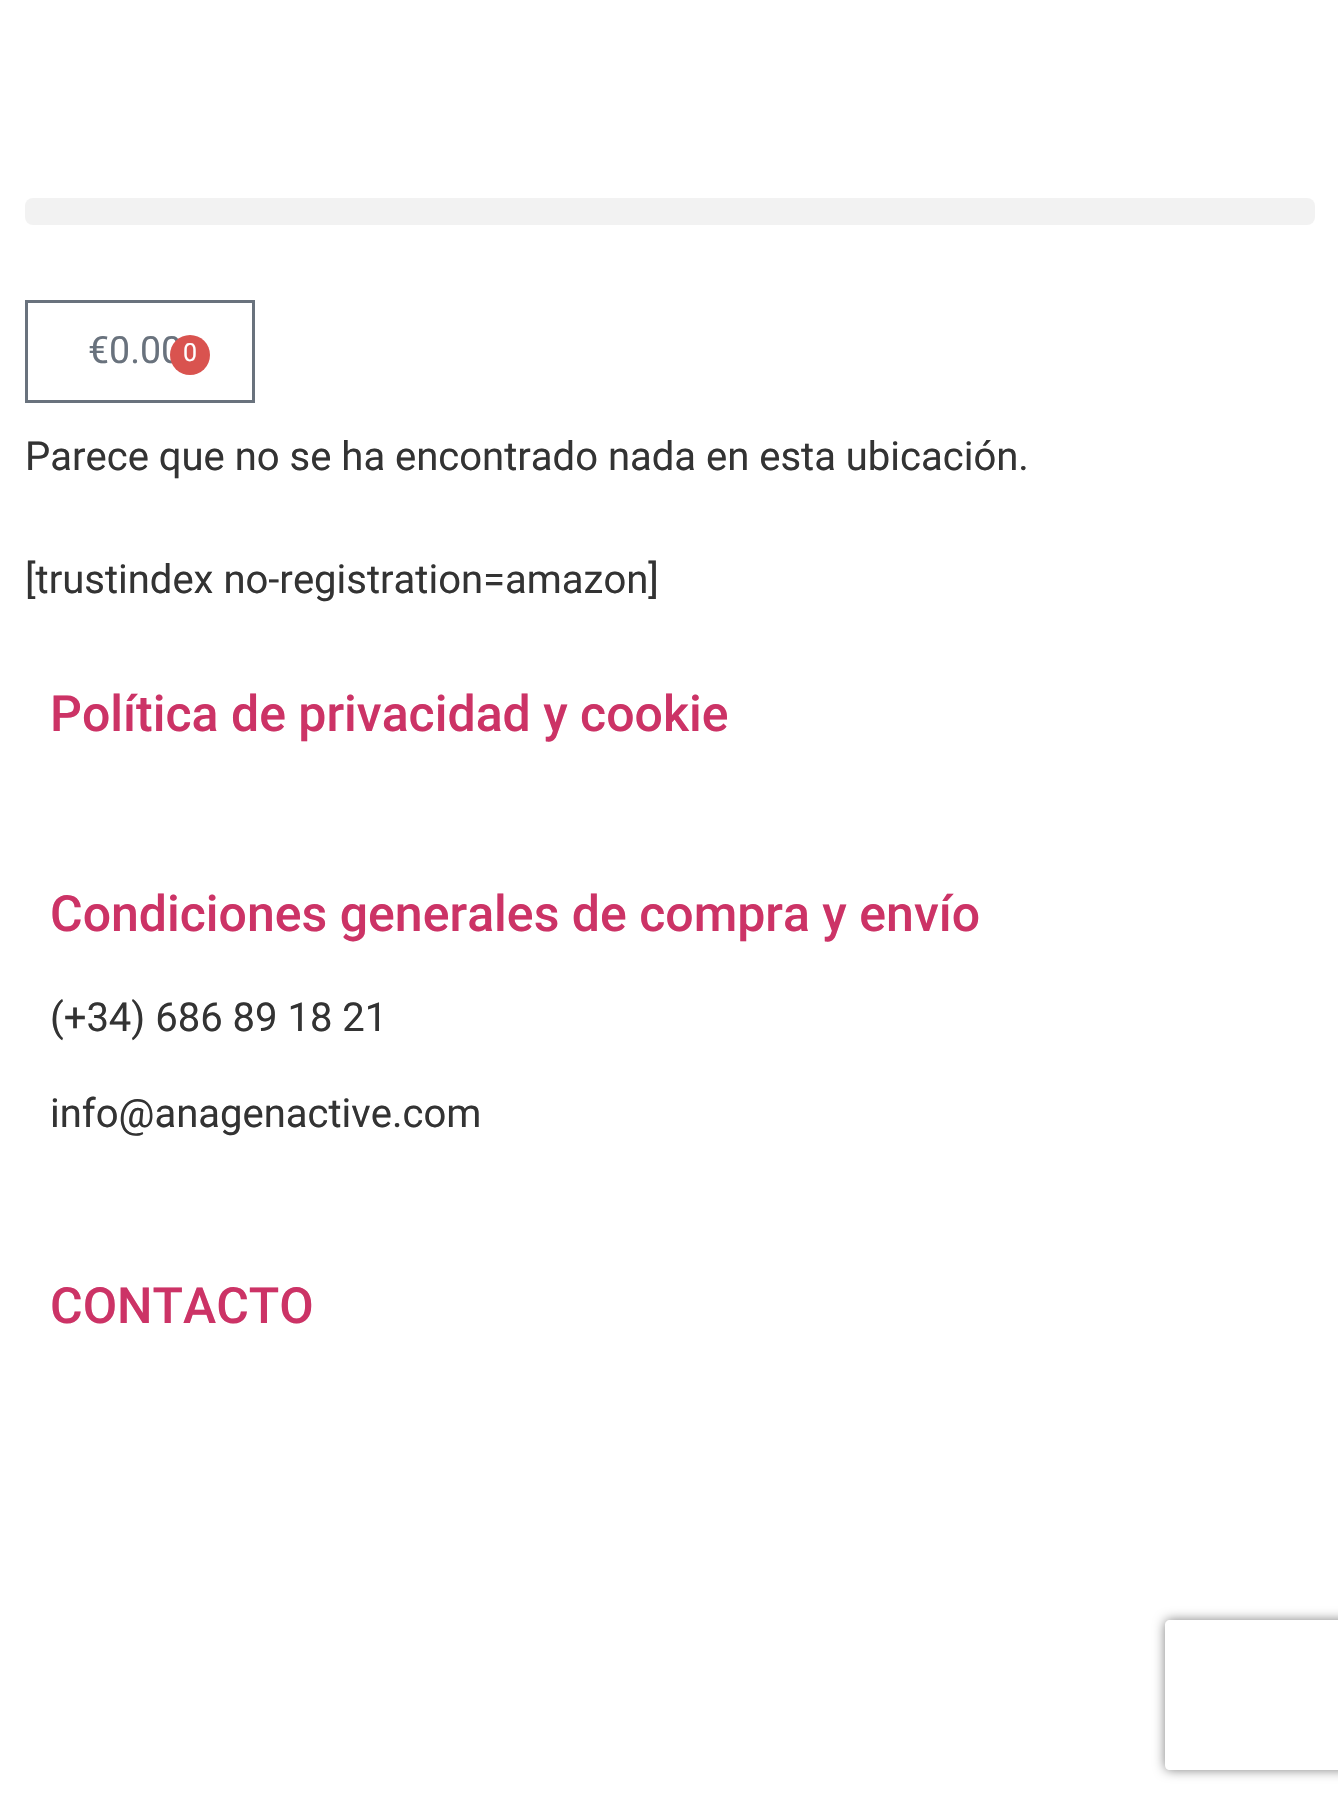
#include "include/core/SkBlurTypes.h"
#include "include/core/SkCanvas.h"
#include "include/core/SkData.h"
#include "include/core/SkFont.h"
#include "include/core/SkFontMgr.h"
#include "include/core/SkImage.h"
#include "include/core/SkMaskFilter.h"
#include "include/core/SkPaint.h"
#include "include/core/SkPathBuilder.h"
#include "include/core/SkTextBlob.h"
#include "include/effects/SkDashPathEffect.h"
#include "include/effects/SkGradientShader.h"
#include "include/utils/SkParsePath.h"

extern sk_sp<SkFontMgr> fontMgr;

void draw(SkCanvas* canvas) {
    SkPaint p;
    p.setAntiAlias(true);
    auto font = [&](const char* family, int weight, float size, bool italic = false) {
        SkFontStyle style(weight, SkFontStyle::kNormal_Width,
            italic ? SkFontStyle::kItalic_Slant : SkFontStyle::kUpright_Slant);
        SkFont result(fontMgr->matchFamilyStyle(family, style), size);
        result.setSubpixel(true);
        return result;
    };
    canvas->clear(0xFFFFFFFF);
    p.setColor(0xFFF2F2F2);
    canvas->drawRoundRect(SkRect::MakeLTRB(25, 198, 1315, 225), 8, 8, p);
    p.setStyle(SkPaint::kStroke_Style);
    p.setStrokeWidth(3);
    p.setColor(0xFF69727D);
    canvas->drawRect(SkRect::MakeLTRB(26.5f, 301.5f, 253.5f, 401.5f), p);
    auto font1 = font("Roboto", 400, 37.5f);
    p.setStyle(SkPaint::kFill_Style);
    canvas->drawString("€0.00", 88, 363, font1, p);
    p.setColor(0xFFD9534F);
    canvas->drawCircle(190, 355, 20, p);
    auto font2 = font("Roboto", 400, 25);
    p.setColor(0xFFFFFFFF);
    canvas->drawString("0", 183, 361, font2, p);
    auto font3 = font("Roboto", 400, 40);
    p.setColor(0xFF333333);
    canvas->drawString("Parece que no se ha encontrado nada en esta ubicación.", 25, 470, font3, p);
    canvas->drawString("[trustindex no-registration=amazon]", 25, 593, font3, p);
    auto font4 = font("Roboto", 500, 50);
    p.setColor(0xFFCC3366);
    canvas->drawString("Política de privacidad y cookie", 50, 731, font4, p);
    canvas->drawString("Condiciones generales de compra y envío", 50, 931, font4, p);
    p.setColor(0xFF333333);
    canvas->drawString("(+34) 686 89 18 21", 50, 1031, font3, p);
    canvas->drawString("info@anagenactive.com", 50, 1127, font3, p);
    p.setColor(0xFFCC3366);
    canvas->drawString("CONTACTO", 50, 1323, font4, p);
    canvas->save();
    canvas->clipPath(SkPathBuilder(SkPathFillType::kEvenOdd).moveTo(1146, 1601).lineTo(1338, 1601).lineTo(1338, 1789).lineTo(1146, 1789).close().moveTo(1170, 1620).lineTo(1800, 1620).cubicTo(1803, 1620, 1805, 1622, 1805, 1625).lineTo(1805, 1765).cubicTo(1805, 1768, 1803, 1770, 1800, 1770).lineTo(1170, 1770).cubicTo(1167, 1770, 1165, 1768, 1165, 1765).lineTo(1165, 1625).cubicTo(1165, 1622, 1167, 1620, 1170, 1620).close().detach(), true);
    p.setColor(0xFF808080);
    p.setMaskFilter(SkMaskFilter::MakeBlur(kNormal_SkBlurStyle, 6));
    canvas->drawRoundRect(SkRect::MakeLTRB(1165, 1620, 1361, 1770), 5, 5, p);
    p.setMaskFilter(nullptr);
    canvas->restore();
}
